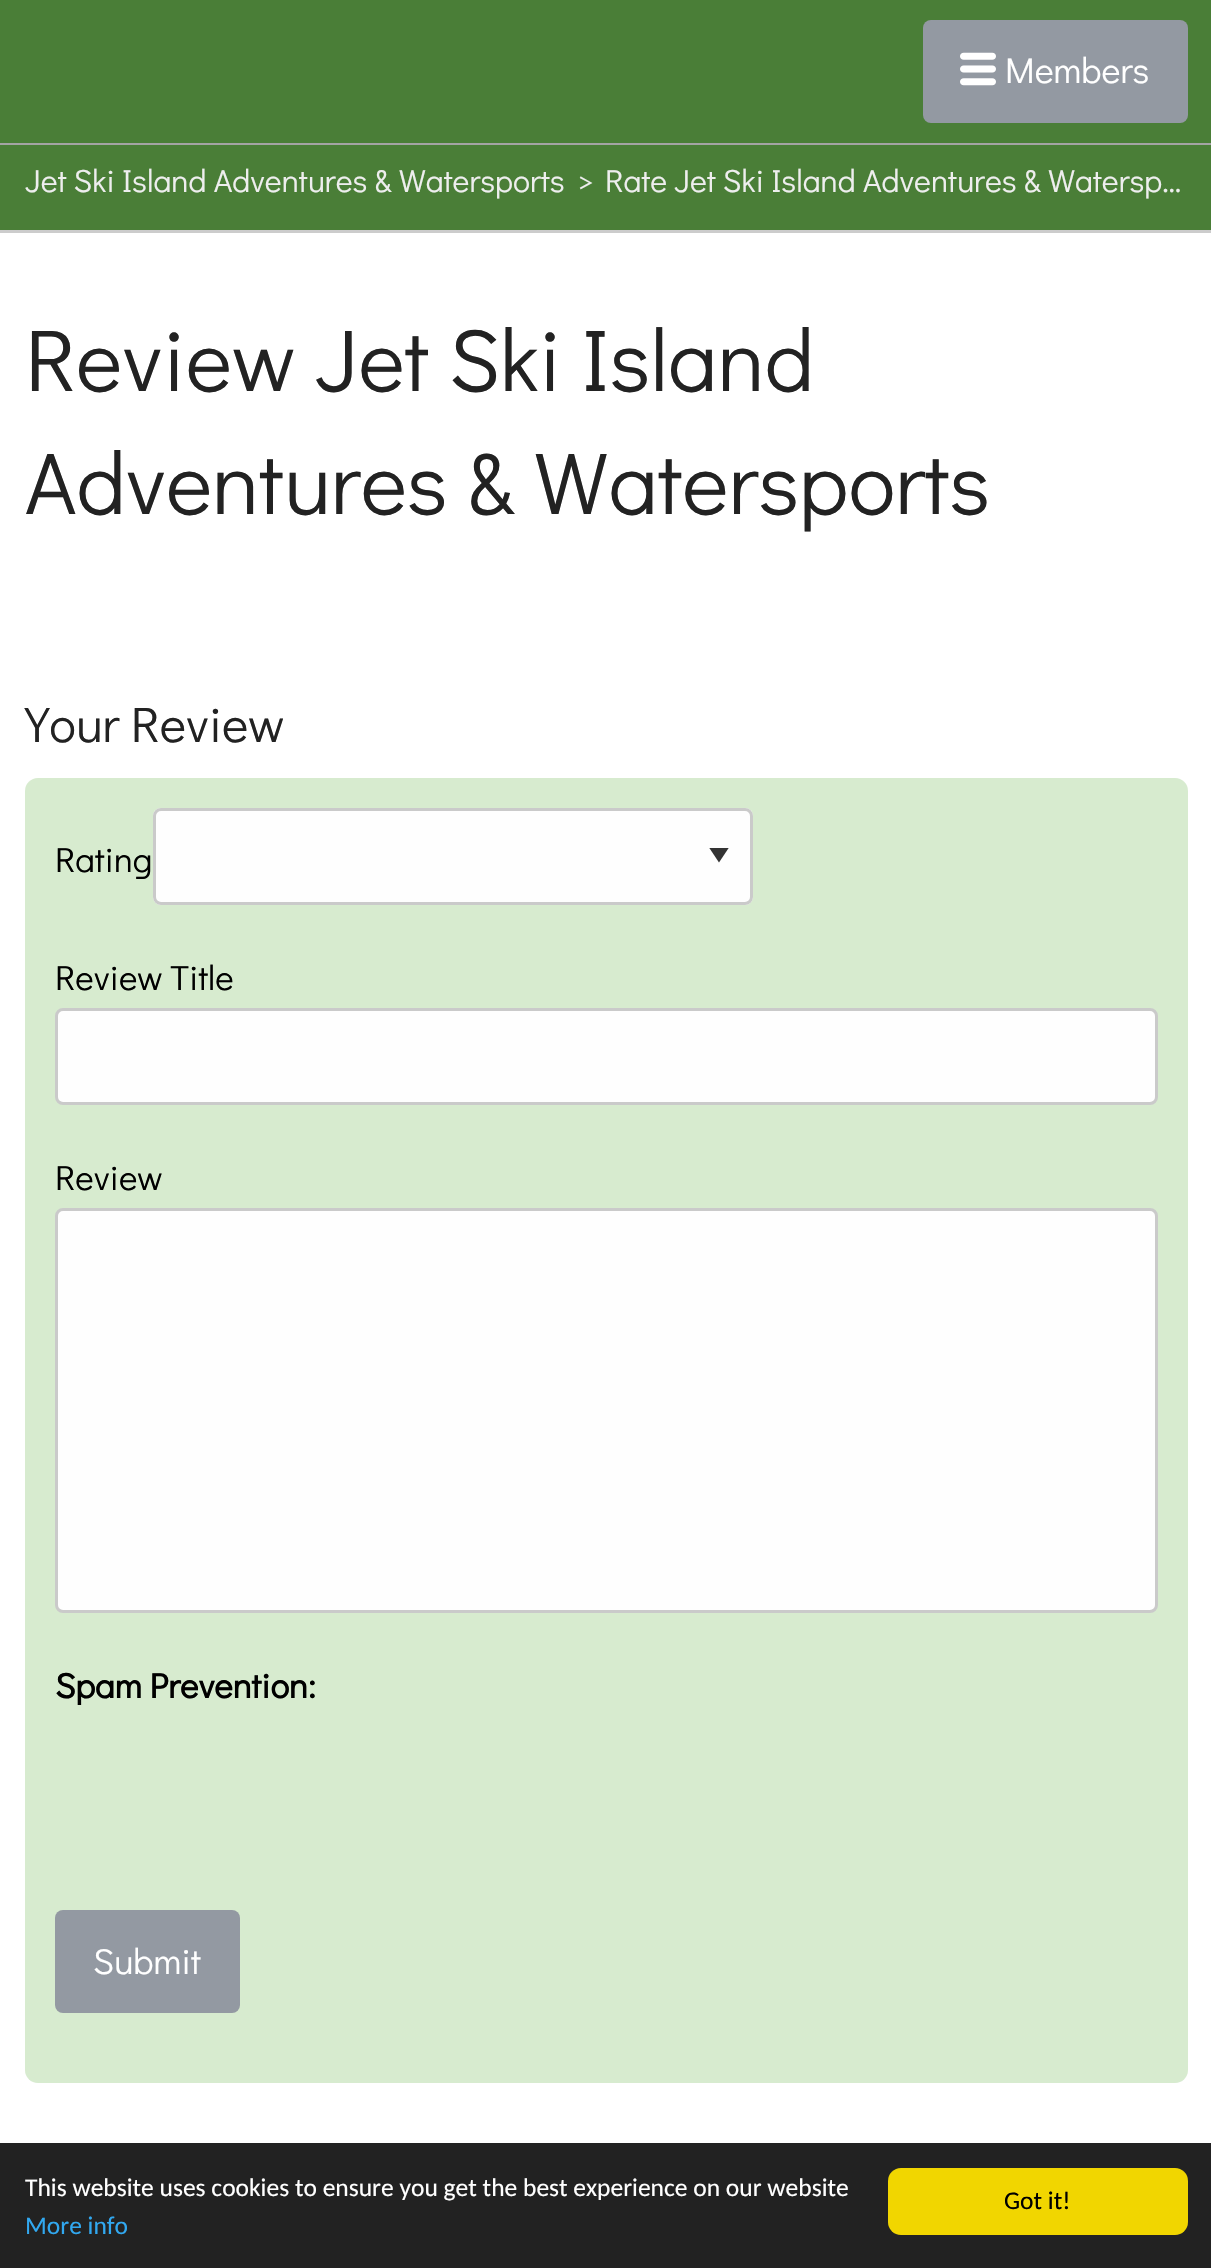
#include "include/core/SkBlurTypes.h"
#include "include/core/SkCanvas.h"
#include "include/core/SkData.h"
#include "include/core/SkFont.h"
#include "include/core/SkFontMgr.h"
#include "include/core/SkImage.h"
#include "include/core/SkMaskFilter.h"
#include "include/core/SkPaint.h"
#include "include/core/SkPathBuilder.h"
#include "include/core/SkTextBlob.h"
#include "include/effects/SkDashPathEffect.h"
#include "include/effects/SkGradientShader.h"
#include "include/utils/SkParsePath.h"

extern sk_sp<SkFontMgr> fontMgr;

void draw(SkCanvas* canvas) {
    SkPaint p;
    p.setAntiAlias(true);
    auto font = [&](const char* family, int weight, float size, bool italic = false) {
        SkFontStyle style(weight, SkFontStyle::kNormal_Width,
            italic ? SkFontStyle::kItalic_Slant : SkFontStyle::kUpright_Slant);
        SkFont result(fontMgr->matchFamilyStyle(family, style), size);
        result.setSubpixel(true);
        return result;
    };
    auto drawPhoto = [&](const char* path, float l, float t, float r, float b) {
        auto image = SkImages::DeferredFromEncodedData(SkData::MakeFromFileName(path));
        canvas->drawImageRect(image, SkRect::MakeLTRB(l, t, r, b), SkSamplingOptions());
    };
    canvas->clear(0xFFFFFFFF);
    p.setColor(0xFF4A7E37);
    canvas->drawRect(SkRect::MakeLTRB(0, 0, 1211, 143), p);
    p.setColor(0xFFA4A4A4);
    canvas->drawRect(SkRect::MakeLTRB(0, 143, 1211, 145), p);
    p.setColor(0xFF9399A2);
    canvas->drawRoundRect(SkRect::MakeLTRB(923, 20, 1188, 123), 8, 8, p);
    drawPhoto("media/1.png", 960, 52, 996, 86);
    auto font1 = font("Didact Gothic", 400, 36);
    p.setColor(0xFFFFFFFF);
    canvas->drawString("Members", 1005, 83, font1, p);
    p.setColor(0xFF4A7E37);
    canvas->drawRect(SkRect::MakeLTRB(0, 145, 1211, 230), p);
    p.setColor(0xFFCCCCCC);
    canvas->drawRect(SkRect::MakeLTRB(0, 230, 1211, 233), p);
    auto font2 = font("Didact Gothic", 400, 32);
    p.setColor(0xFFEEEEEE);
    {
        const struct { const char* s; float x, y; } items[] = {
            {"Jet Ski Island Adventures & Watersports", 25, 192},
            {">", 577, 192},
            {"Rate Jet Ski Island Adventures & Watersp…", 605, 192},
        };
        for (auto [s, x, y] : items) {
            canvas->drawString(s, x, y, font2, p);
        }
    }
    auto font3 = font("Didact Gothic", 400, 88);
    p.setColor(0xFF222222);
    canvas->drawString("Review Jet Ski Island", 25, 391, font3, p);
    canvas->drawString("Adventures & Watersports", 25, 514, font3, p);
    auto font4 = font("Didact Gothic", 400, 50);
    canvas->drawString("Your Review", 25, 742, font4, p);
    p.setColor(0xFFD7EBCF);
    canvas->drawRoundRect(SkRect::MakeLTRB(25, 778, 1188, 2083), 13, 13, p);
    auto font5 = font("Didact Gothic", 400, 35);
    p.setColor(0xFF000000);
    canvas->drawString("Rating", 55, 872, font5, p);
    p.setColor(0xFFFEFEFE);
    canvas->drawRoundRect(SkRect::MakeLTRB(153, 808, 753, 905), 8, 8, p);
    canvas->save();
    canvas->clipRect(SkRect::MakeLTRB(708, 848, 730, 863));
    p.setColor(0xFF333333);
    canvas->drawPath(SkPathBuilder().moveTo(709, 847.5f).lineTo(729, 847.5f).lineTo(719, 862.5f).close().detach(), p);
    canvas->restore();
    p.setStyle(SkPaint::kStroke_Style);
    p.setStrokeWidth(3);
    p.setColor(0xFFCACACA);
    canvas->drawRoundRect(SkRect::MakeLTRB(154.5f, 809.5f, 751.5f, 903.5f), 6.5f, 6.5f, p);
    p.setStyle(SkPaint::kFill_Style);
    p.setColor(0xFF000000);
    canvas->drawString("Review Title", 55, 990, font5, p);
    p.setColor(0xFFFEFEFE);
    canvas->drawRoundRect(SkRect::MakeLTRB(56.5f, 1009.5f, 1156.5f, 1103.5f), 6.5f, 6.5f, p);
    p.setStyle(SkPaint::kStroke_Style);
    p.setColor(0xFFCACACA);
    canvas->drawRoundRect(SkRect::MakeLTRB(56.5f, 1009.5f, 1156.5f, 1103.5f), 6.5f, 6.5f, p);
    p.setStyle(SkPaint::kFill_Style);
    p.setColor(0xFF000000);
    canvas->drawString("Review", 55, 1190, font5, p);
    p.setColor(0xFFFEFEFE);
    canvas->drawRoundRect(SkRect::MakeLTRB(56.5f, 1209.5f, 1156.5f, 1611.5f), 6.5f, 6.5f, p);
    p.setStyle(SkPaint::kStroke_Style);
    p.setColor(0xFFCACACA);
    canvas->drawRoundRect(SkRect::MakeLTRB(56.5f, 1209.5f, 1156.5f, 1611.5f), 6.5f, 6.5f, p);
    auto font6 = font("Didact Gothic", 700, 35);
    p.setStyle(SkPaint::kFill_Style);
    p.setColor(0xFF000000);
    canvas->drawString("Spam Prevention:", 55, 1698, font6, p);
    p.setColor(0xFF9399A2);
    canvas->drawRoundRect(SkRect::MakeLTRB(55, 1910, 240, 2013), 8, 8, p);
    p.setColor(0xFFFFFFFF);
    canvas->drawString("Submit", 93, 1974, font1, p);
    p.setColor(0xFF222222);
    canvas->drawRect(SkRect::MakeLTRB(0, 2143, 1211, 2268), p);
    auto font7 = font("Carlito", 400, 25.5f);
    p.setColor(0xFFFFFFFF);
    canvas->drawString("This website uses cookies to ensure you get the best experience on our website", 25, 2196, font7, p);
    p.setColor(0xFF31A8F0);
    canvas->drawString("More info", 25, 2234, font7, p);
    p.setColor(0xFFF1D600);
    canvas->drawRoundRect(SkRect::MakeLTRB(888, 2168, 1188, 2235), 13, 13, p);
    p.setColor(0xFF000000);
    canvas->drawString("Got it!", 1004, 2209, font7, p);
}
